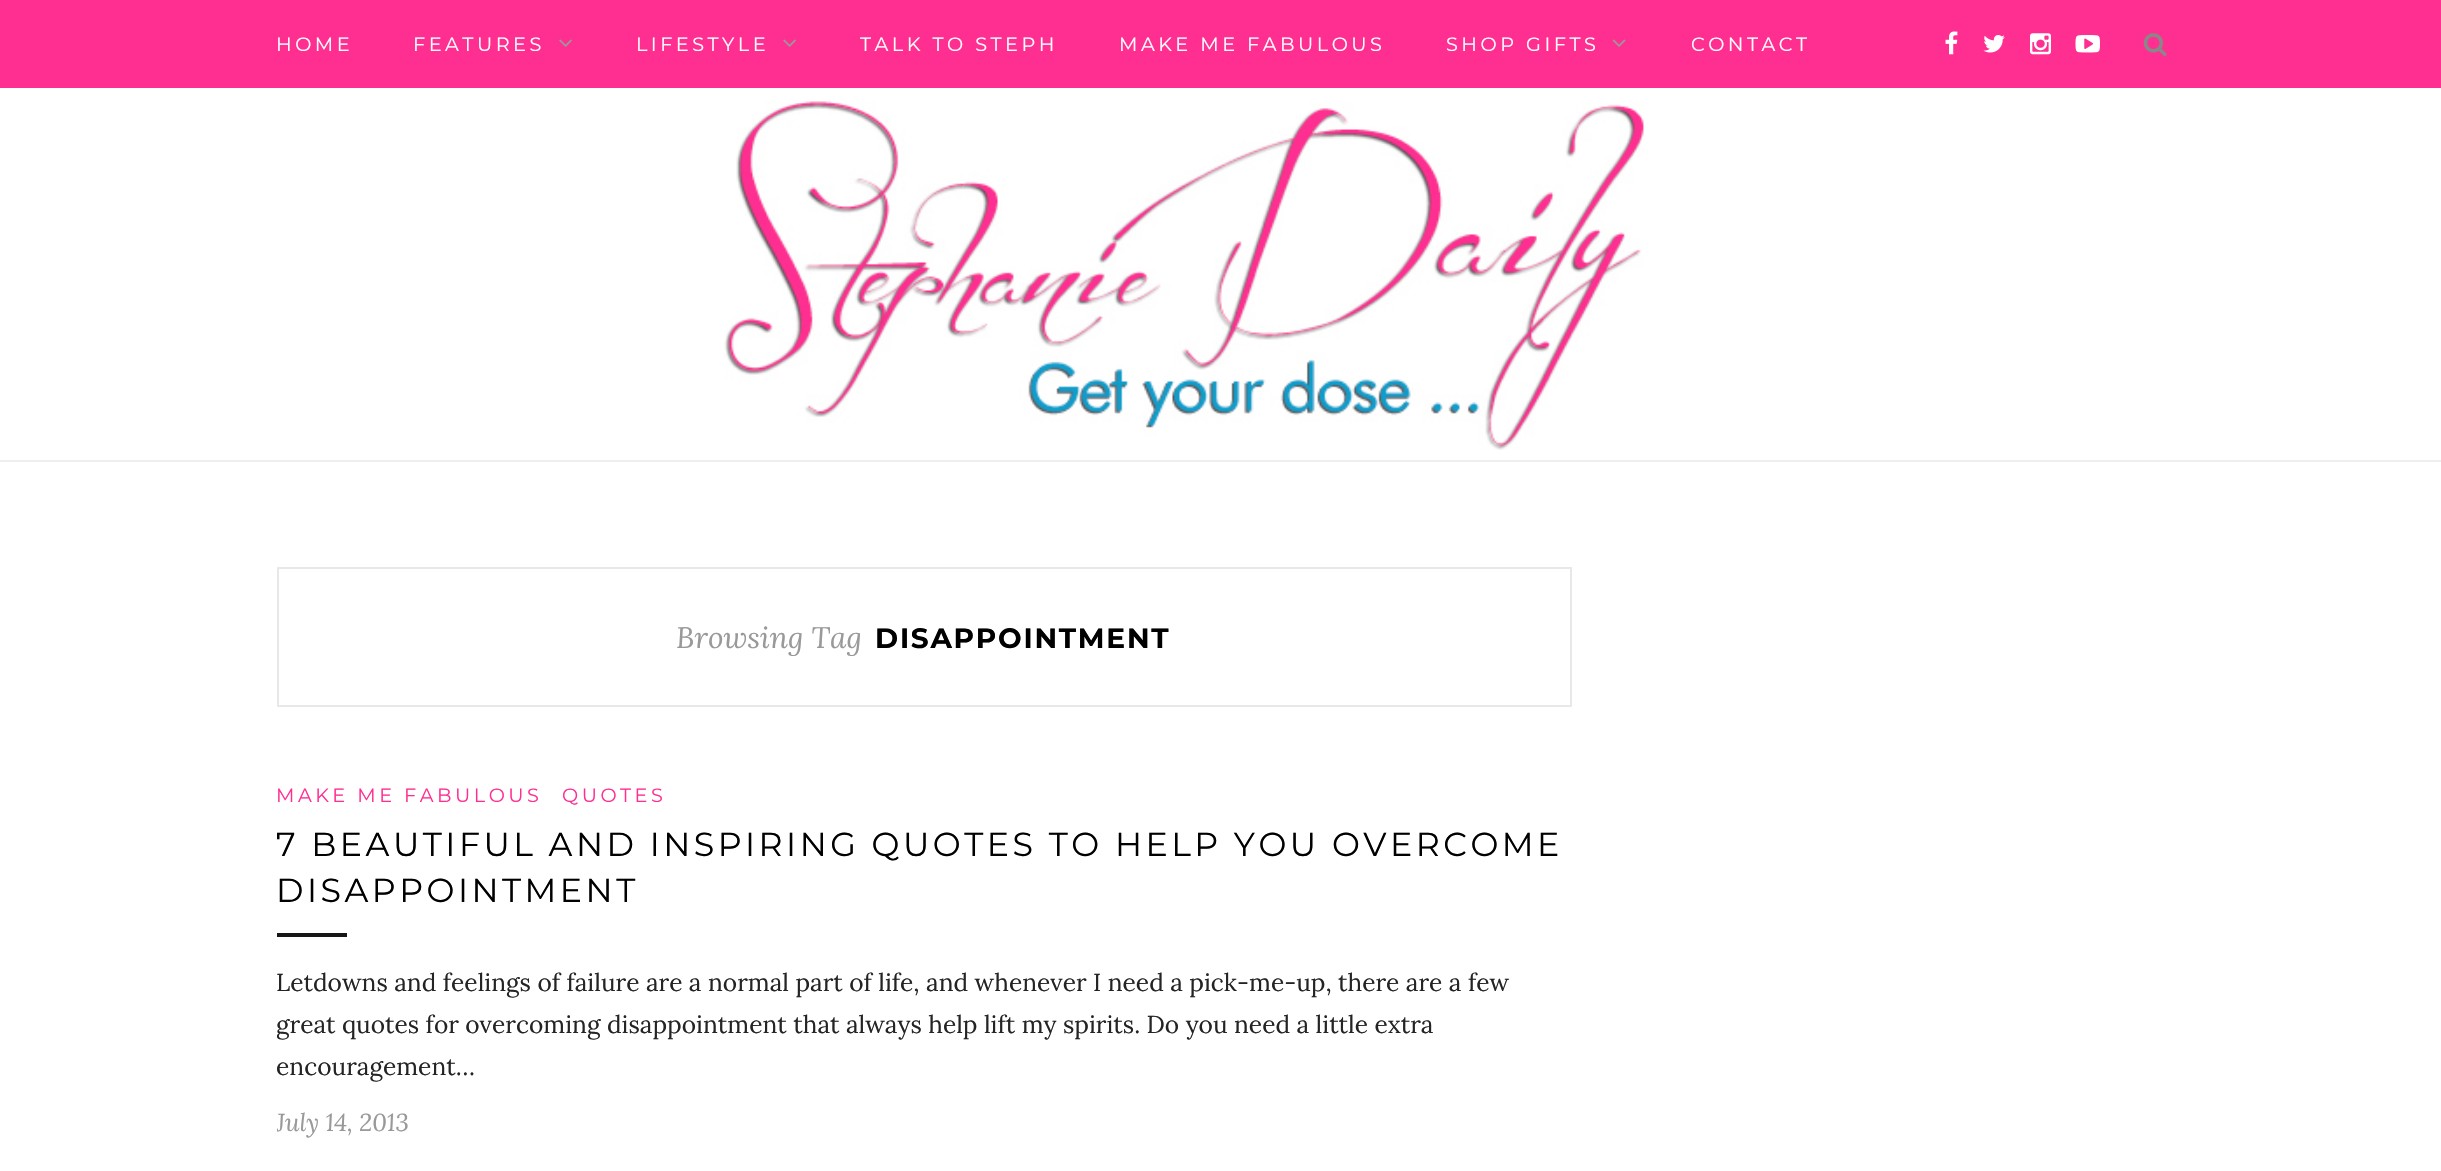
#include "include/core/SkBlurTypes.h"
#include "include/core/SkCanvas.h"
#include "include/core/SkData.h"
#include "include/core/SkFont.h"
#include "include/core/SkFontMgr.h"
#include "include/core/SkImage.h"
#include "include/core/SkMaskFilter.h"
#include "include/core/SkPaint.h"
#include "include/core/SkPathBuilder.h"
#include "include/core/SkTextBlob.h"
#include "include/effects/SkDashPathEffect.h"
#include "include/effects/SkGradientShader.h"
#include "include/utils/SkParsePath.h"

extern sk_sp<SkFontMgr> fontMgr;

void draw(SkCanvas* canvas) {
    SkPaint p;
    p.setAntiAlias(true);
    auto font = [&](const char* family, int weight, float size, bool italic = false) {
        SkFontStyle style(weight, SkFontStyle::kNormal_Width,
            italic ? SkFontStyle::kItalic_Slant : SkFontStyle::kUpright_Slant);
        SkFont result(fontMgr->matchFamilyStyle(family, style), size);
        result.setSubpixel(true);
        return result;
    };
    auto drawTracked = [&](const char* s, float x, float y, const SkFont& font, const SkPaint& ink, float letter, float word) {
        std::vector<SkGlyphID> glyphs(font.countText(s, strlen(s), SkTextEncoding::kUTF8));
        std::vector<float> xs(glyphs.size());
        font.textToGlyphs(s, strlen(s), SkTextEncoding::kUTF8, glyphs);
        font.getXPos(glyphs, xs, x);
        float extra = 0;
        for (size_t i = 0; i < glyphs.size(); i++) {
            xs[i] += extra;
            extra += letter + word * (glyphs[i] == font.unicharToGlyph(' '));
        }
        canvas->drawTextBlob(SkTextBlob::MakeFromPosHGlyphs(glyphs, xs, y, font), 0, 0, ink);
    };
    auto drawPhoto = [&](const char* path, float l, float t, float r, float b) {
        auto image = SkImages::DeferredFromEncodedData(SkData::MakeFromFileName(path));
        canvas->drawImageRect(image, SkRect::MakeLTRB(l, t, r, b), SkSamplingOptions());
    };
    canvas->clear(0xFFFFFFFF);
    p.setColor(0xFFFF2F91);
    canvas->drawRect(SkRect::MakeLTRB(0, 0, 2441, 88), p);
    auto font1 = font("Montserrat", 400, 19.25f);
    p.setColor(0xFFFFFFFF);
    drawTracked("HOME", 276, 51, font1, p, 3.5f, 0);
    drawTracked("FEATURES", 413, 51, font1, p, 3.5f, 0);
    drawPhoto("media/1.png", 559, 39, 572, 47);
    drawTracked("LIFESTYLE", 636, 51, font1, p, 3.5f, 0);
    drawPhoto("media/1.png", 783, 39, 796, 47);
    {
        const struct { const char* s; float x, y; } items[] = {
            {"TALK TO STEPH", 860, 51},
            {"MAKE ME FABULOUS", 1119, 51},
            {"SHOP GIFTS", 1446, 51},
        };
        for (auto [s, x, y] : items) {
            drawTracked(s, x, y, font1, p, 3.5f, 0);
        }
    }
    drawPhoto("media/2.png", 1612, 39, 1626, 47);
    drawTracked("CONTACT", 1691, 51, font1, p, 3.5f, 0);
    drawPhoto("media/3.png", 1945, 31, 1958, 55);
    drawPhoto("media/4.png", 1983, 35, 2005, 53);
    drawPhoto("media/5.png", 2030, 33, 2051, 55);
    drawPhoto("media/6.png", 2075, 35, 2100, 53);
    drawPhoto("media/7.png", 2143, 33, 2167, 56);
    p.setColor(0xFFEEEEEE);
    canvas->drawRect(SkRect::MakeLTRB(0, 460, 2441, 462), p);
    drawPhoto("media/8.png", 724, 101, 1644, 450);
    p.setStyle(SkPaint::kStroke_Style);
    p.setStrokeWidth(2);
    p.setColor(0xFFE8E8E8);
    canvas->drawRect(SkRect::MakeLTRB(278, 568, 1571, 706), p);
    auto font2 = font("Lora", 400, 29.75f, true);
    p.setStyle(SkPaint::kFill_Style);
    p.setColor(0xFF999999);
    canvas->drawString("Browsing Tag", 676, 648, font2, p);
    auto font3 = font("Montserrat", 700, 28);
    p.setColor(0xFF000000);
    drawTracked("DISAPPOINTMENT", 875, 648, font3, p, 1.75f, 0);
    p.setColor(0xFFFF2F91);
    drawTracked("MAKE ME FABULOUS", 276, 802, font1, p, 3.5f, 0);
    drawTracked("QUOTES", 562, 802, font1, p, 3.5f, 0);
    canvas->save();
    canvas->clipRect(SkRect::MakeLTRB(277, 777, 1572, 1138));
    auto font4 = font("Montserrat", 400, 33.25f);
    p.setColor(0xFF000000);
    drawTracked("7 BEAUTIFUL AND INSPIRING QUOTES TO HELP YOU OVERCOME", 276, 856, font4, p, 3.5f, 0);
    canvas->restore();
    drawTracked("DISAPPOINTMENT", 276, 902, font4, p, 3.5f, 0);
    p.setColor(0xFF161616);
    canvas->drawRect(SkRect::MakeLTRB(277, 933, 347, 937), p);
    auto font5 = font("Lora", 400, 24.5f);
    p.setColor(0xFF242424);
    canvas->drawString("Letdowns and feelings of failure are a normal part of life, and whenever I need a pick-me-up, there are a few", 276, 991, font5, p);
    canvas->save();
    canvas->clipRect(SkRect::MakeLTRB(277, 777, 1572, 1138));
    canvas->drawString("great quotes for overcoming disappointment that always help lift my spirits. Do you need a little extra", 276, 1033, font5, p);
    canvas->drawString("encouragement…", 276, 1075, font5, p);
    auto font6 = font("Lora", 400, 24.5f, true);
    p.setColor(0xFF999999);
    canvas->drawString("July 14, 2013", 276, 1131, font6, p);
    canvas->restore();
}
